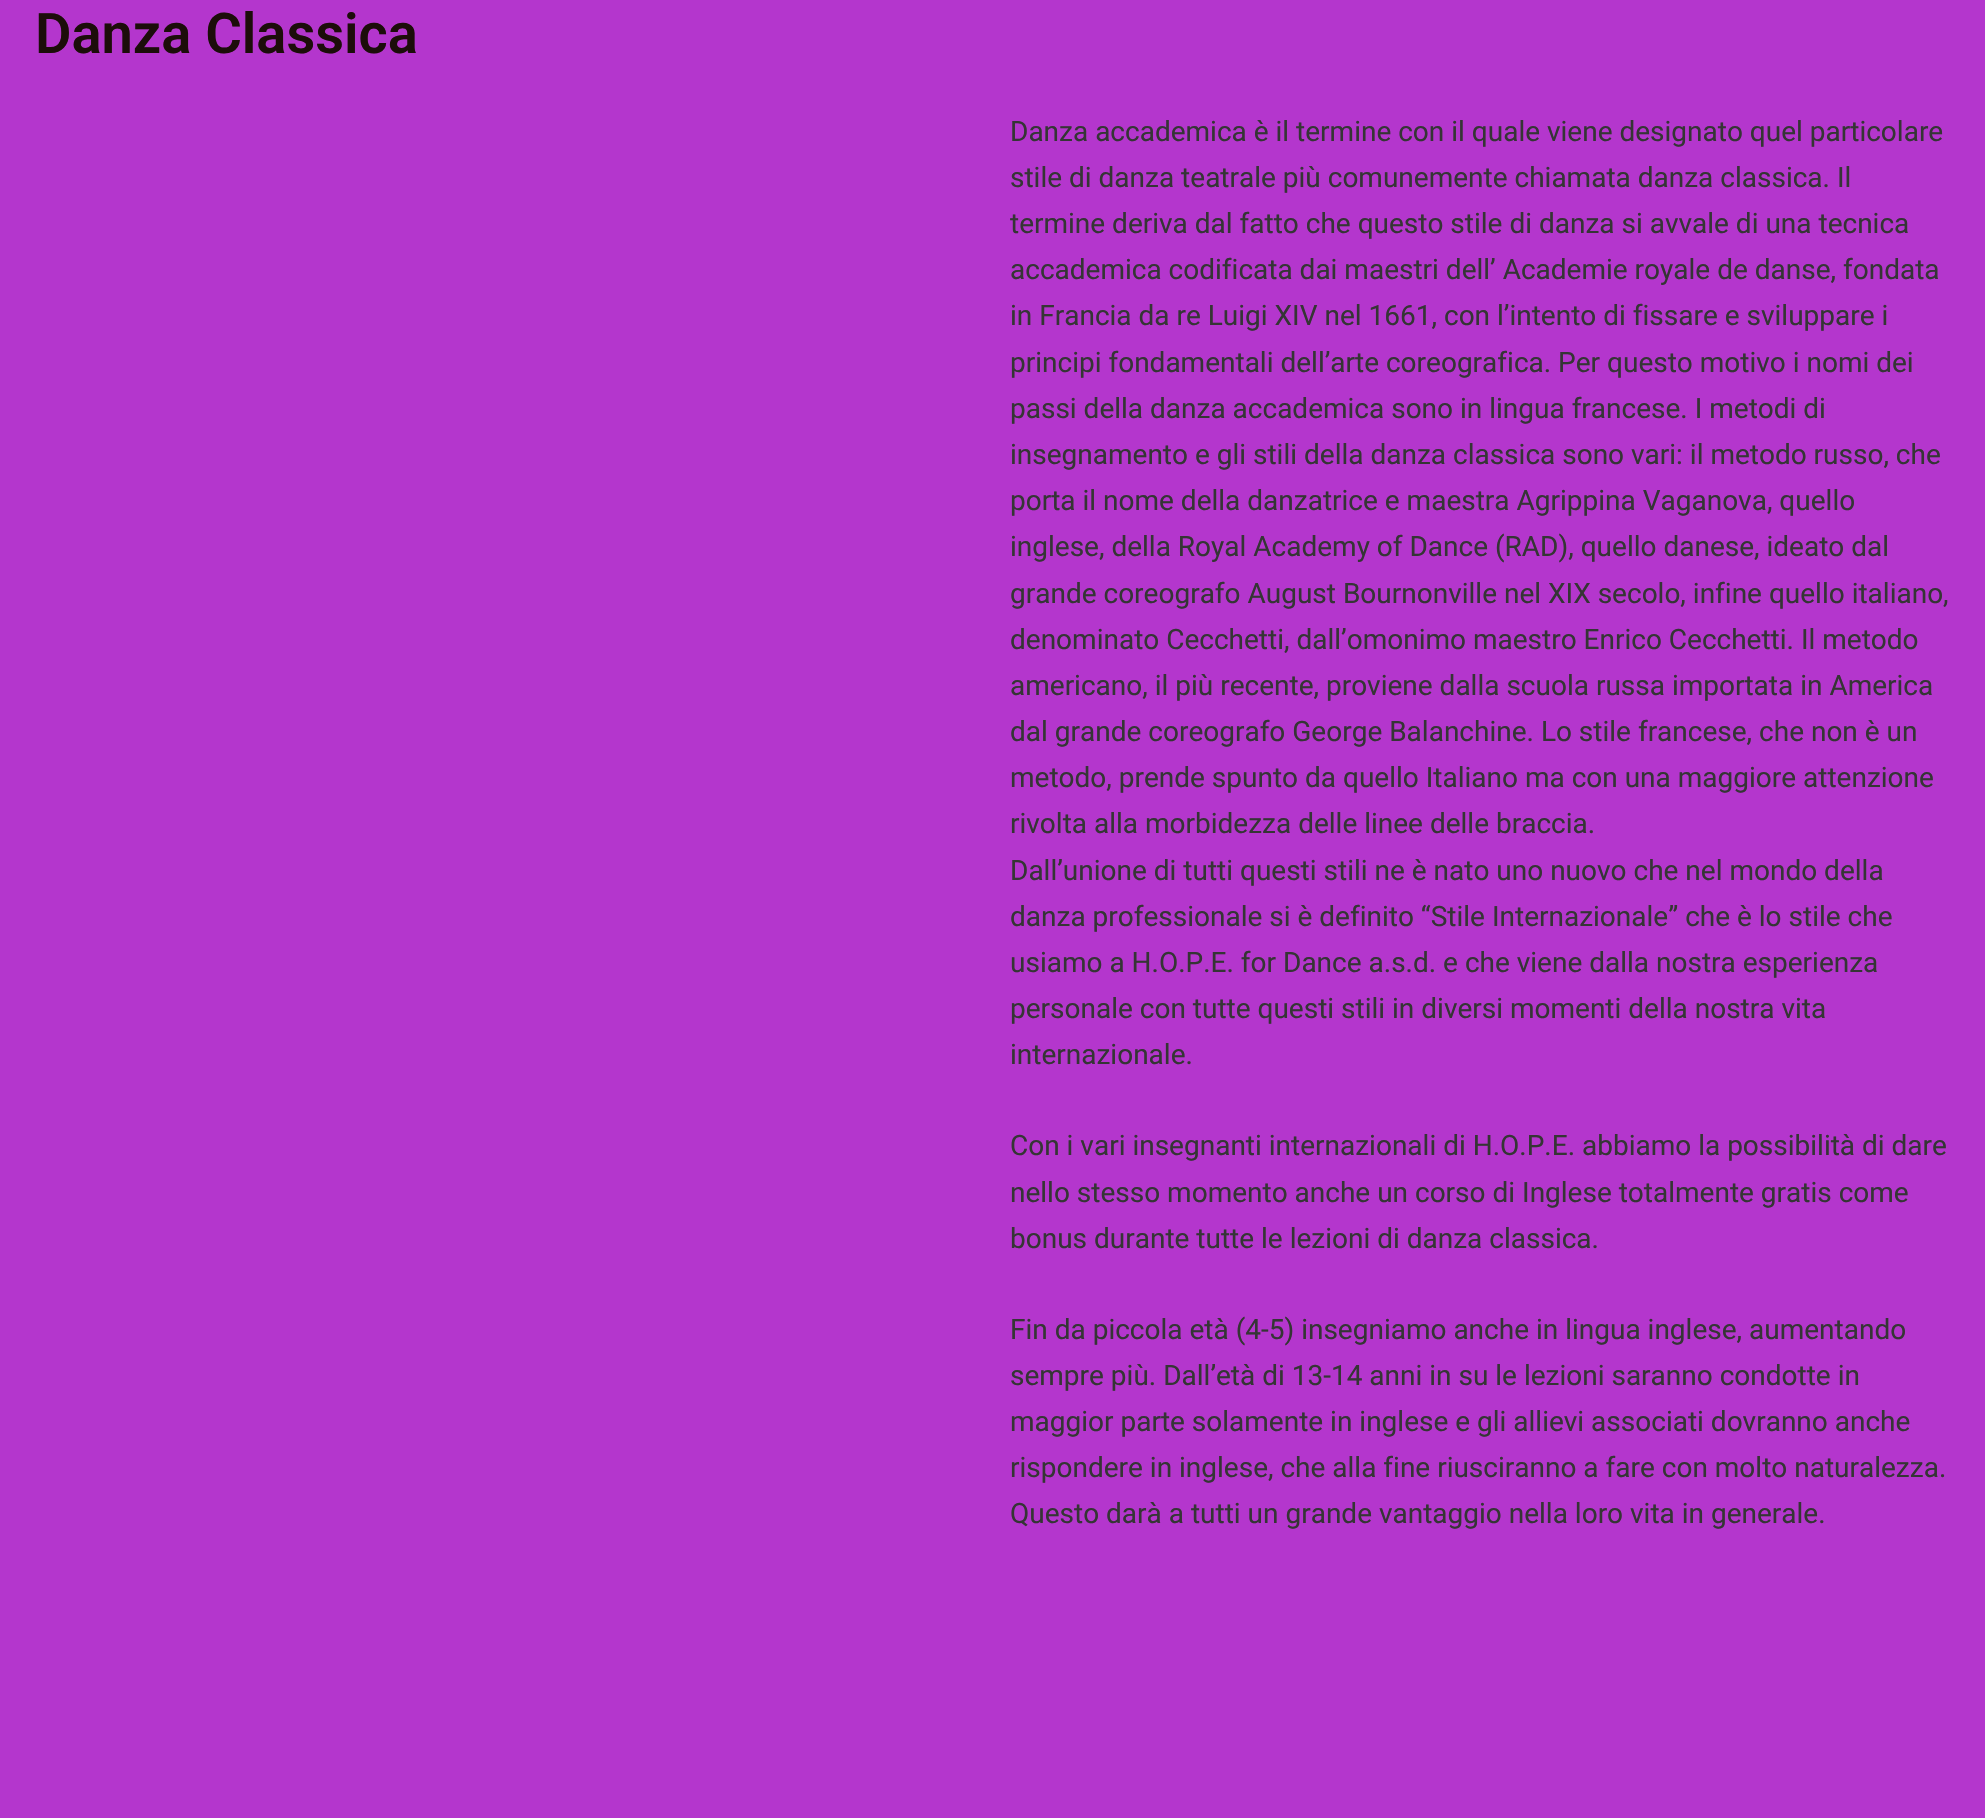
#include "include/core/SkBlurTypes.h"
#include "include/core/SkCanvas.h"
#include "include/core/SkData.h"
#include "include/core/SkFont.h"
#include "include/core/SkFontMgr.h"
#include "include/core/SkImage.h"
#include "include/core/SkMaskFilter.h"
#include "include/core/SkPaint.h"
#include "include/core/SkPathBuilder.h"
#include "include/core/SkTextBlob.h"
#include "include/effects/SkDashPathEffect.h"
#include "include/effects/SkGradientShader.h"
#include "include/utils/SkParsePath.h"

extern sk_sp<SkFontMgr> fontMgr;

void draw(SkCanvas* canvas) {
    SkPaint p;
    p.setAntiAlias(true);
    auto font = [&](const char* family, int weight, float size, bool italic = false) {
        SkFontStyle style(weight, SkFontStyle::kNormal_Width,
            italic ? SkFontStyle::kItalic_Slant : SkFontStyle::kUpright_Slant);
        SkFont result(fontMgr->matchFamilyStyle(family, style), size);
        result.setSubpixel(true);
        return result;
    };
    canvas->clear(0xFFB436CD);
    auto font1 = font("Roboto", 600, 56);
    p.setColor(0xFF1C0D0A);
    canvas->drawString("Danza Classica", 35, 53, font1, p);
    auto font2 = font("Roboto", 400, 28);
    p.setColor(0xFF353535);
    {
        const struct { const char* s; float x, y; } items[] = {
            {"Danza accademica è il termine con il quale viene designato quel particolare", 1010, 141},
            {"stile di danza teatrale più comunemente chiamata danza classica. Il", 1010, 187},
            {"termine deriva dal fatto che questo stile di danza si avvale di una tecnica", 1010, 233},
            {"accademica codificata dai maestri dell’ Academie royale de danse, fondata", 1010, 279},
            {"in Francia da re Luigi XIV nel 1661, con l’intento di fissare e sviluppare i", 1010, 325},
            {"principi fondamentali dell’arte coreografica. Per questo motivo i nomi dei", 1010, 372},
            {"passi della danza accademica sono in lingua francese. I metodi di", 1010, 418},
            {"insegnamento e gli stili della danza classica sono vari: il metodo russo, che", 1010, 464},
            {"porta il nome della danzatrice e maestra Agrippina Vaganova, quello", 1010, 510},
            {"inglese, della Royal Academy of Dance (RAD), quello danese, ideato dal", 1010, 556},
            {"grande coreografo August Bournonville nel XIX secolo, infine quello italiano,", 1010, 603},
            {"denominato Cecchetti, dall’omonimo maestro Enrico Cecchetti. Il metodo", 1010, 649},
            {"americano, il più recente, proviene dalla scuola russa importata in America", 1010, 695},
            {"dal grande coreografo George Balanchine. Lo stile francese, che non è un", 1010, 741},
            {"metodo, prende spunto da quello Italiano ma con una maggiore attenzione", 1010, 787},
            {"rivolta alla morbidezza delle linee delle braccia.", 1010, 833},
            {"Dall’unione di tutti questi stili ne è nato uno nuovo che nel mondo della", 1010, 880},
            {"danza professionale si è definito “Stile Internazionale” che è lo stile che", 1010, 926},
            {"usiamo a H.O.P.E. for Dance a.s.d. e che viene dalla nostra esperienza", 1010, 972},
            {"personale con tutte questi stili in diversi momenti della nostra vita", 1010, 1018},
            {"internazionale.", 1010, 1064},
            {"Con i vari insegnanti internazionali di H.O.P.E. abbiamo la possibilità di dare", 1010, 1155},
            {"nello stesso momento anche un corso di Inglese totalmente gratis come", 1010, 1202},
            {"bonus durante tutte le lezioni di danza classica.", 1010, 1248},
            {"Fin da piccola età (4-5) insegniamo anche in lingua inglese, aumentando", 1010, 1339},
            {"sempre più. Dall’età di 13-14 anni in su le lezioni saranno condotte in", 1010, 1385},
            {"maggior parte solamente in inglese e gli allievi associati dovranno anche", 1010, 1431},
            {"rispondere in inglese, che alla fine riusciranno a fare con molto naturalezza.", 1010, 1477},
            {"Questo darà a tutti un grande vantaggio nella loro vita in generale.", 1010, 1523},
        };
        for (auto [s, x, y] : items) {
            canvas->drawString(s, x, y, font2, p);
        }
    }
}
